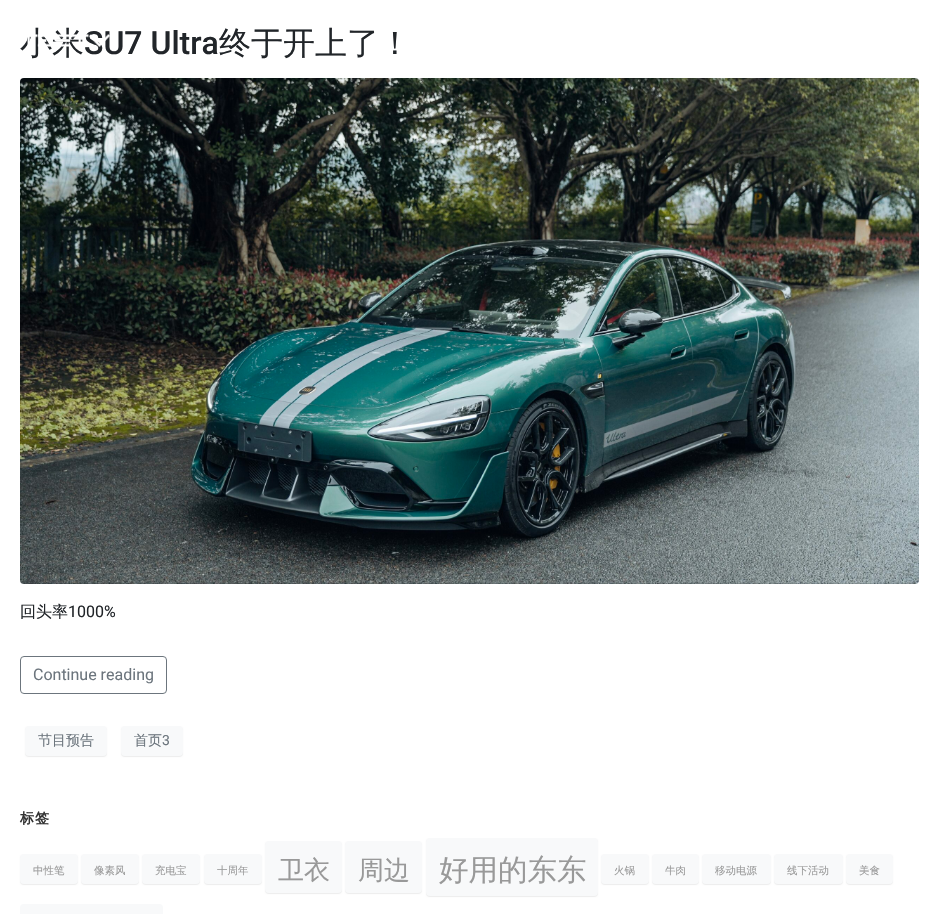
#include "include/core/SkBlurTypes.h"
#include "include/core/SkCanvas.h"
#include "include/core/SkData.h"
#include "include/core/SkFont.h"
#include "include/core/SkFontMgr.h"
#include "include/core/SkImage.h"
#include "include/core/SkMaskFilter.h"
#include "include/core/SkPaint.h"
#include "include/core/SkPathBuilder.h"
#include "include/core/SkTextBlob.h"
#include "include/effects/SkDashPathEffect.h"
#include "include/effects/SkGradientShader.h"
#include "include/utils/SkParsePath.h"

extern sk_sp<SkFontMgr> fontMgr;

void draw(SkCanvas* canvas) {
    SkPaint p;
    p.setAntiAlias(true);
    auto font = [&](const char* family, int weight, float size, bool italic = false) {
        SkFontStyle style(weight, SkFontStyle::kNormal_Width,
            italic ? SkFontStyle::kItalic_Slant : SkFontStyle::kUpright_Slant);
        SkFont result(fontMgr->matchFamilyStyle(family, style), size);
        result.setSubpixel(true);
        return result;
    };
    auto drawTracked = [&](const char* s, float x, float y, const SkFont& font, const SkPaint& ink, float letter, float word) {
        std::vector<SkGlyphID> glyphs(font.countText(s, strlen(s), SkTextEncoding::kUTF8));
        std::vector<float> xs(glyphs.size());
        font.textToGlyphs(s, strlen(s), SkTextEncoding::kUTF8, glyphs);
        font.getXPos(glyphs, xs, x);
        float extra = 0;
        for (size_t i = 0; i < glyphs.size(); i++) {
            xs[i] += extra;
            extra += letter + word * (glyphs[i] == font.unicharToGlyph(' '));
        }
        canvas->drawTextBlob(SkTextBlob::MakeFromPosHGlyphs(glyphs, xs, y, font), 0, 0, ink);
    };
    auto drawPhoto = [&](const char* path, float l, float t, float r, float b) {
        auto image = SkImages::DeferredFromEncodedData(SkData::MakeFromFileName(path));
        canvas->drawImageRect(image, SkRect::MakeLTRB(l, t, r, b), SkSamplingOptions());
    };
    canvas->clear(0xFFFFFFFF);
    auto font1 = font("WenQuanYi Zen Hei", 500, 32);
    p.setColor(0xFF212529);
    canvas->drawString("小米", 20, 54, font1, p);
    auto font2 = font("Roboto", 500, 32);
    canvas->drawString("SU7 Ultra", 84, 54, font2, p);
    canvas->drawString("终于开上了！", 219, 54, font1, p);
    drawPhoto("media/1.png", 20, 78, 919, 584);
    auto font3 = font("WenQuanYi Zen Hei", 500, 16);
    canvas->drawString("回头率", 20, 617, font3, p);
    auto font4 = font("Roboto", 400, 16);
    canvas->drawString("1000%", 68, 617, font4, p);
    p.setStyle(SkPaint::kStroke_Style);
    p.setStrokeWidth(1);
    p.setColor(0xFF6C757D);
    canvas->drawRoundRect(SkRect::MakeLTRB(20.5f, 656.5f, 166.5f, 693.5f), 3.5f, 3.5f, p);
    p.setStyle(SkPaint::kFill_Style);
    canvas->drawString("Continue reading", 33, 680, font4, p);
    p.setColor(0x12000000);
    p.setMaskFilter(SkMaskFilter::MakeBlur(kNormal_SkBlurStyle, 0.5f));
    canvas->drawRoundRect(SkRect::MakeLTRB(25, 727, 107, 757), 4, 4, p);
    p.setMaskFilter(nullptr);
    p.setColor(0xFFF8F9FA);
    canvas->drawRoundRect(SkRect::MakeLTRB(25, 726, 107, 756), 4, 4, p);
    auto font5 = font("WenQuanYi Zen Hei", 500, 14);
    p.setColor(0xFF6C757D);
    canvas->drawString("节目预告", 38, 745, font5, p);
    p.setColor(0x12000000);
    p.setMaskFilter(SkMaskFilter::MakeBlur(kNormal_SkBlurStyle, 0.5f));
    canvas->drawRoundRect(SkRect::MakeLTRB(121, 727, 183, 757), 4, 4, p);
    p.setMaskFilter(nullptr);
    p.setColor(0xFFF8F9FA);
    canvas->drawRoundRect(SkRect::MakeLTRB(121, 726, 183, 756), 4, 4, p);
    p.setColor(0xFF6C757D);
    canvas->drawString("首页", 134, 745, font5, p);
    auto font6 = font("Roboto", 400, 14);
    canvas->drawString("3", 162, 745, font6, p);
    auto font7 = font("WenQuanYi Zen Hei", 700, 14);
    p.setColor(0xFF333333);
    drawTracked("标签", 20, 823, font7, p, 1, 0);
    p.setColor(0x12000000);
    p.setMaskFilter(SkMaskFilter::MakeBlur(kNormal_SkBlurStyle, 0.5f));
    canvas->drawRoundRect(SkRect::MakeLTRB(20, 855, 78, 885), 4, 4, p);
    p.setMaskFilter(nullptr);
    p.setColor(0xFFF8F9FA);
    canvas->drawRoundRect(SkRect::MakeLTRB(20, 854, 78, 884), 4, 4, p);
    auto font8 = font("WenQuanYi Zen Hei", 500, 10.5f);
    p.setColor(0xFF999999);
    canvas->drawString("中性笔", 33, 874, font8, p);
    p.setColor(0x12000000);
    p.setMaskFilter(SkMaskFilter::MakeBlur(kNormal_SkBlurStyle, 0.5f));
    canvas->drawRoundRect(SkRect::MakeLTRB(81, 855, 139, 885), 4, 4, p);
    p.setMaskFilter(nullptr);
    p.setColor(0xFFF8F9FA);
    canvas->drawRoundRect(SkRect::MakeLTRB(81, 854, 139, 884), 4, 4, p);
    p.setColor(0xFF999999);
    canvas->drawString("像素风", 94, 874, font8, p);
    p.setColor(0x12000000);
    p.setMaskFilter(SkMaskFilter::MakeBlur(kNormal_SkBlurStyle, 0.5f));
    canvas->drawRoundRect(SkRect::MakeLTRB(142, 855, 200, 885), 4, 4, p);
    p.setMaskFilter(nullptr);
    p.setColor(0xFFF8F9FA);
    canvas->drawRoundRect(SkRect::MakeLTRB(142, 854, 200, 884), 4, 4, p);
    p.setColor(0xFF999999);
    canvas->drawString("充电宝", 155, 874, font8, p);
    p.setColor(0x12000000);
    p.setMaskFilter(SkMaskFilter::MakeBlur(kNormal_SkBlurStyle, 0.5f));
    canvas->drawRoundRect(SkRect::MakeLTRB(204, 855, 262, 885), 4, 4, p);
    p.setMaskFilter(nullptr);
    p.setColor(0xFFF8F9FA);
    canvas->drawRoundRect(SkRect::MakeLTRB(204, 854, 262, 884), 4, 4, p);
    p.setColor(0xFF999999);
    canvas->drawString("十周年", 217, 874, font8, p);
    p.setColor(0x12000000);
    p.setMaskFilter(SkMaskFilter::MakeBlur(kNormal_SkBlurStyle, 0.5f));
    canvas->drawRoundRect(SkRect::MakeLTRB(265, 842, 342, 894), 4, 4, p);
    p.setMaskFilter(nullptr);
    p.setColor(0xFFF8F9FA);
    canvas->drawRoundRect(SkRect::MakeLTRB(265, 841, 342, 893), 4, 4, p);
    auto font9 = font("WenQuanYi Zen Hei", 500, 26);
    p.setColor(0xFF999999);
    canvas->drawString("卫衣", 278, 879, font9, p);
    p.setColor(0x12000000);
    p.setMaskFilter(SkMaskFilter::MakeBlur(kNormal_SkBlurStyle, 0.5f));
    canvas->drawRoundRect(SkRect::MakeLTRB(345, 842, 422, 894), 4, 4, p);
    p.setMaskFilter(nullptr);
    p.setColor(0xFFF8F9FA);
    canvas->drawRoundRect(SkRect::MakeLTRB(345, 841, 422, 893), 4, 4, p);
    p.setColor(0xFF999999);
    canvas->drawString("周边", 358, 879, font9, p);
    p.setColor(0x12000000);
    p.setMaskFilter(SkMaskFilter::MakeBlur(kNormal_SkBlurStyle, 0.5f));
    canvas->drawRoundRect(SkRect::MakeLTRB(426, 839, 598, 897), 4, 4, p);
    p.setMaskFilter(nullptr);
    p.setColor(0xFFF8F9FA);
    canvas->drawRoundRect(SkRect::MakeLTRB(426, 838, 598, 896), 4, 4, p);
    auto font10 = font("WenQuanYi Zen Hei", 500, 29.5f);
    p.setColor(0xFF999999);
    canvas->drawString("好用的东东", 439, 880, font10, p);
    p.setColor(0x12000000);
    p.setMaskFilter(SkMaskFilter::MakeBlur(kNormal_SkBlurStyle, 0.5f));
    canvas->drawRoundRect(SkRect::MakeLTRB(601, 855, 649, 885), 4, 4, p);
    p.setMaskFilter(nullptr);
    p.setColor(0xFFF8F9FA);
    canvas->drawRoundRect(SkRect::MakeLTRB(601, 854, 649, 884), 4, 4, p);
    p.setColor(0xFF999999);
    canvas->drawString("火锅", 614, 874, font8, p);
    p.setColor(0x12000000);
    p.setMaskFilter(SkMaskFilter::MakeBlur(kNormal_SkBlurStyle, 0.5f));
    canvas->drawRoundRect(SkRect::MakeLTRB(652, 855, 699, 885), 4, 4, p);
    p.setMaskFilter(nullptr);
    p.setColor(0xFFF8F9FA);
    canvas->drawRoundRect(SkRect::MakeLTRB(652, 854, 699, 884), 4, 4, p);
    p.setColor(0xFF999999);
    canvas->drawString("牛肉", 665, 874, font8, p);
    p.setColor(0x12000000);
    p.setMaskFilter(SkMaskFilter::MakeBlur(kNormal_SkBlurStyle, 0.5f));
    canvas->drawRoundRect(SkRect::MakeLTRB(702, 855, 771, 885), 4, 4, p);
    p.setMaskFilter(nullptr);
    p.setColor(0xFFF8F9FA);
    canvas->drawRoundRect(SkRect::MakeLTRB(702, 854, 771, 884), 4, 4, p);
    p.setColor(0xFF999999);
    canvas->drawString("移动电源", 715, 874, font8, p);
    p.setColor(0x12000000);
    p.setMaskFilter(SkMaskFilter::MakeBlur(kNormal_SkBlurStyle, 0.5f));
    canvas->drawRoundRect(SkRect::MakeLTRB(774, 855, 843, 885), 4, 4, p);
    p.setMaskFilter(nullptr);
    p.setColor(0xFFF8F9FA);
    canvas->drawRoundRect(SkRect::MakeLTRB(774, 854, 843, 884), 4, 4, p);
    p.setColor(0xFF999999);
    canvas->drawString("线下活动", 787, 874, font8, p);
    p.setColor(0x12000000);
    p.setMaskFilter(SkMaskFilter::MakeBlur(kNormal_SkBlurStyle, 0.5f));
    canvas->drawRoundRect(SkRect::MakeLTRB(846, 855, 893, 885), 4, 4, p);
    p.setMaskFilter(nullptr);
    p.setColor(0xFFF8F9FA);
    canvas->drawRoundRect(SkRect::MakeLTRB(846, 854, 893, 884), 4, 4, p);
    p.setColor(0xFF999999);
    canvas->drawString("美食", 859, 874, font8, p);
    p.setColor(0xFFF8F9FA);
    canvas->drawRoundRect(SkRect::MakeLTRB(20, 904, 163, 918), 4, 4, p);
    drawPhoto("media/2.png", 27, 34, 110, 47);
}
